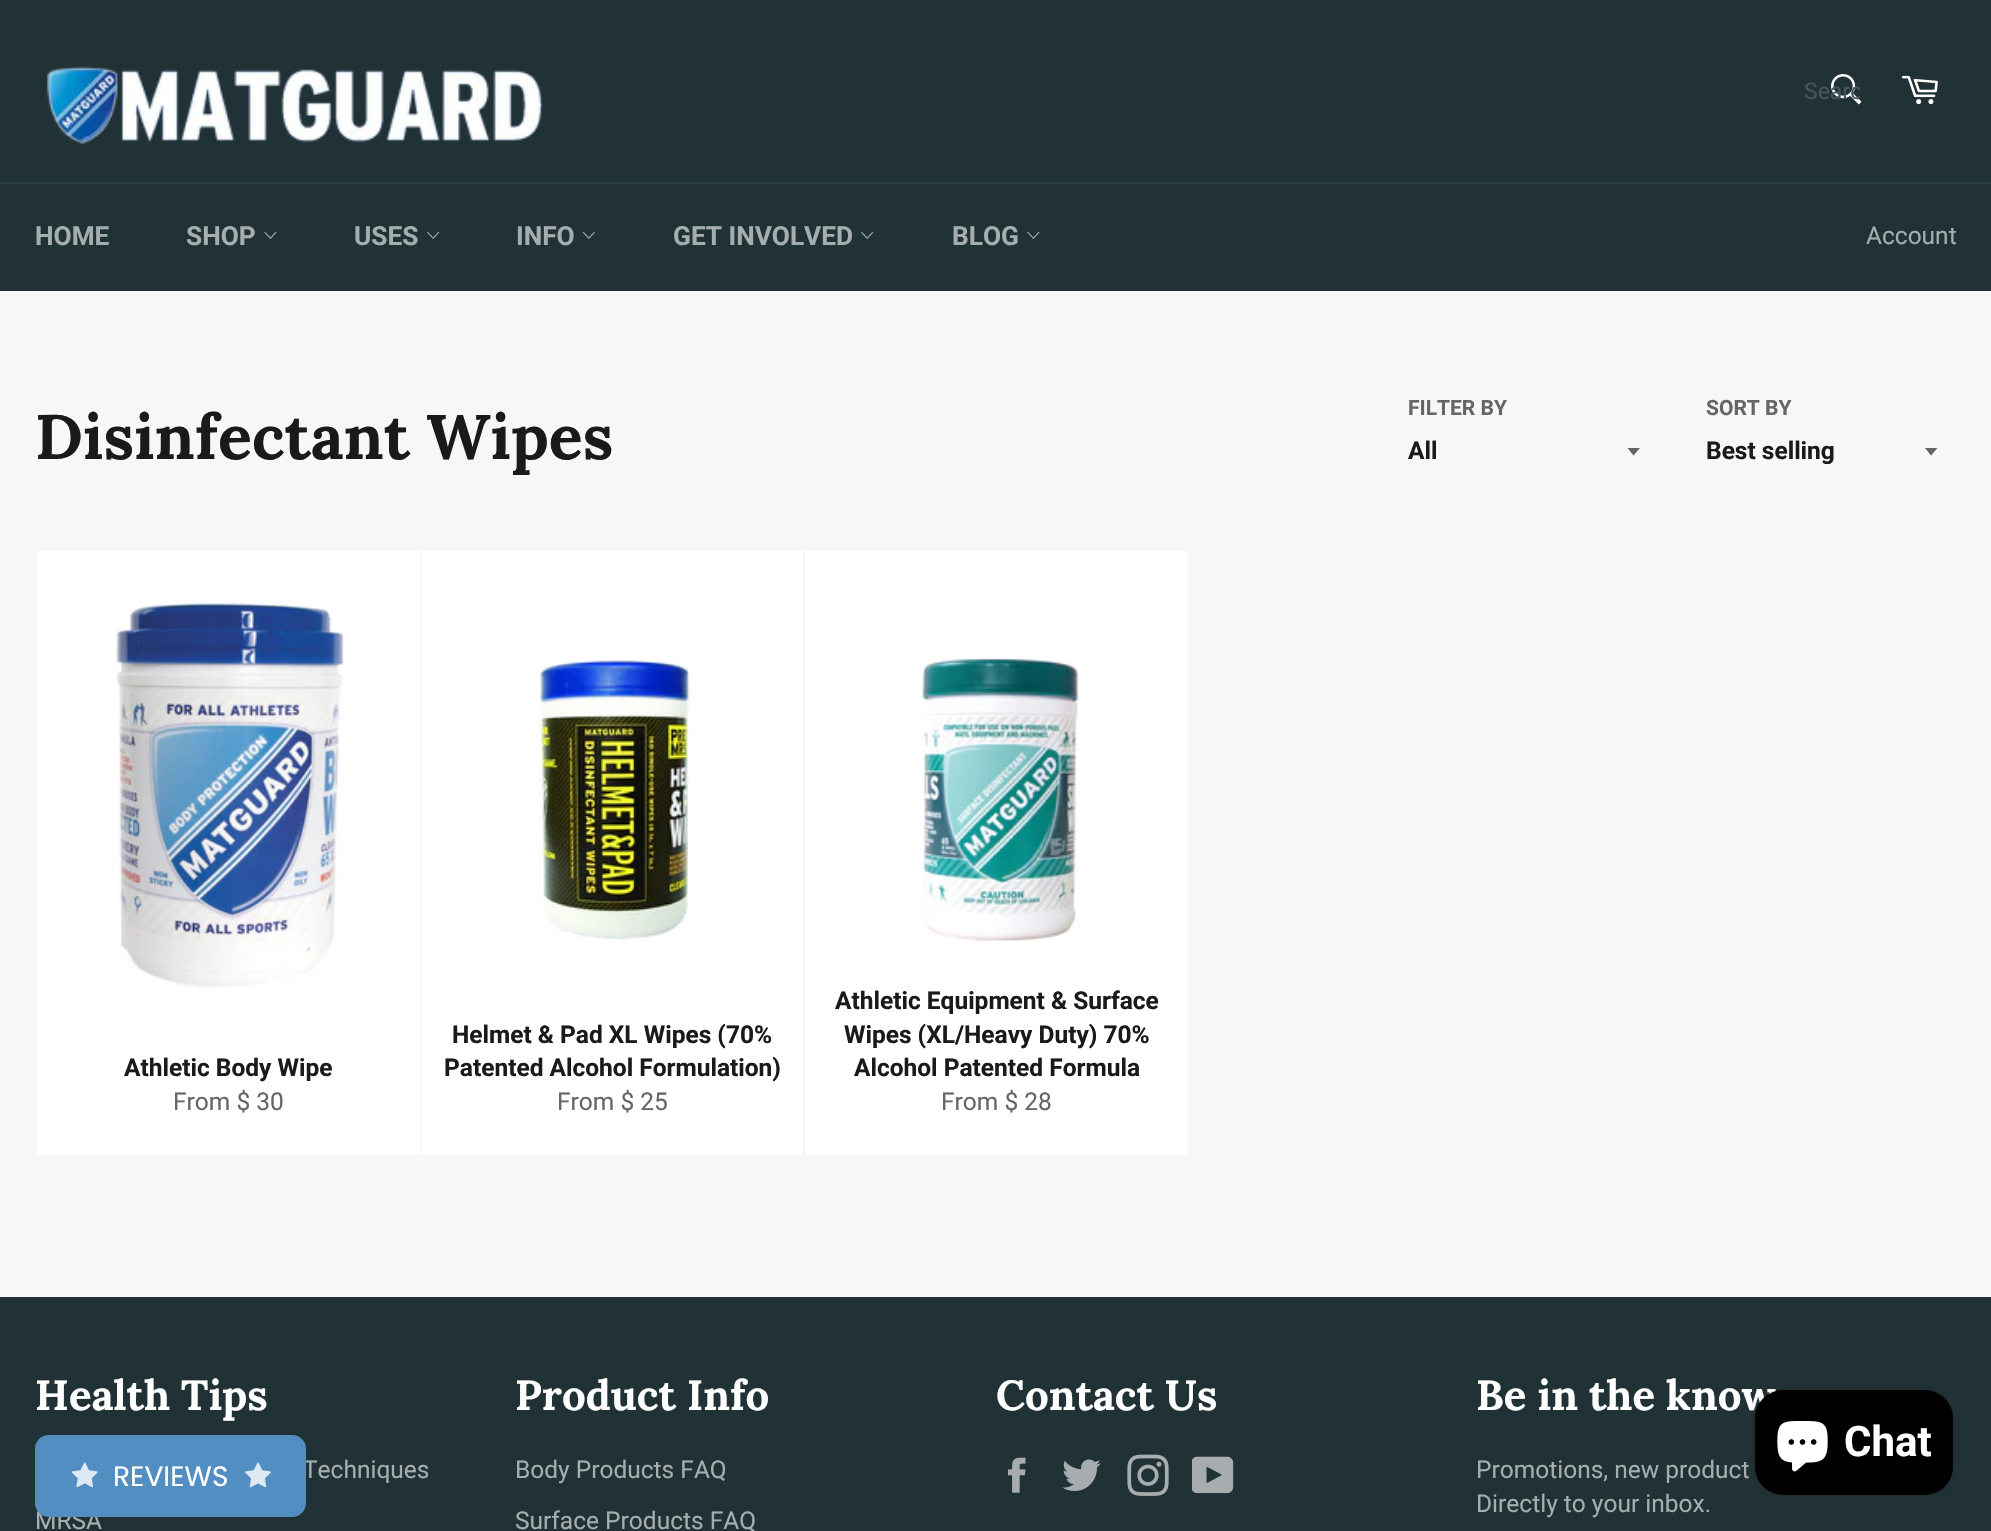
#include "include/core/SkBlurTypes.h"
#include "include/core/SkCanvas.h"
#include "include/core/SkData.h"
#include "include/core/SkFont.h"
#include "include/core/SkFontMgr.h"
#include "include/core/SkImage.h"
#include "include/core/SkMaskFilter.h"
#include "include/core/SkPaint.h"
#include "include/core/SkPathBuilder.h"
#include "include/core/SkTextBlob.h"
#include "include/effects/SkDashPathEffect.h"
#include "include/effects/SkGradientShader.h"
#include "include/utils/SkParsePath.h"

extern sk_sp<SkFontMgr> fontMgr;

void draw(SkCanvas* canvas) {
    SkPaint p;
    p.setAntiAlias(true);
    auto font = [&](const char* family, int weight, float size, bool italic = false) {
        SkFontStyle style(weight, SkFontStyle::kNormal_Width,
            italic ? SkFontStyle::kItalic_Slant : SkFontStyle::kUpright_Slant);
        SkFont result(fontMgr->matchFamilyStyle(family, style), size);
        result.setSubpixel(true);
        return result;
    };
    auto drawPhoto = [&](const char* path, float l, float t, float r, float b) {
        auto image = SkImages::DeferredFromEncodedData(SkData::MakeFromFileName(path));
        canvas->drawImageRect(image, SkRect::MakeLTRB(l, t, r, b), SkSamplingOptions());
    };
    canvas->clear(0xFFF7F7F7);
    p.setColor(0xFF213236);
    canvas->drawRect(SkRect::MakeLTRB(0, 0, 1991, 182), p);
    drawPhoto("media/1.png", 46, 66, 543, 144);
    drawPhoto("media/2.png", 1831, 74, 1862, 105);
    canvas->save();
    canvas->clipRect(SkRect::MakeLTRB(1804, 79, 1860, 105));
    auto font1 = font("Roboto", 400, 23);
    p.setColor(0xFF485659);
    canvas->drawString("Searc", 1804, 99, font1, p);
    canvas->restore();
    drawPhoto("media/3.png", 1901, 75, 1938, 105);
    p.setColor(0xFF213236);
    canvas->drawRect(SkRect::MakeLTRB(0, 184, 1991, 291), p);
    p.setColor(0xFF2B4146);
    canvas->drawRect(SkRect::MakeLTRB(0, 182, 1991, 184), p);
    auto font2 = font("Roboto", 700, 26.25f);
    p.setColor(0xFFA6ADAF);
    canvas->drawString("HOME", 35, 245, font2, p);
    canvas->drawString("SHOP", 186, 245, font2, p);
    drawPhoto("media/4.png", 264, 231, 277, 239);
    canvas->drawString("USES", 354, 245, font2, p);
    drawPhoto("media/5.png", 427, 231, 440, 239);
    canvas->drawString("INFO", 516, 245, font2, p);
    drawPhoto("media/6.png", 582, 231, 595, 239);
    canvas->drawString("GET INVOLVED", 673, 245, font2, p);
    drawPhoto("media/5.png", 861, 231, 874, 239);
    canvas->drawString("BLOG", 952, 245, font2, p);
    drawPhoto("media/4.png", 1027, 231, 1040, 239);
    auto font3 = font("Roboto", 400, 24.5f);
    canvas->drawString("Account", 1866, 244, font3, p);
    auto font4 = font("Lora", 700, 63);
    p.setColor(0xFF1A1A1A);
    canvas->drawString("Disinfectant Wipes", 35, 459, font4, p);
    auto font5 = font("Roboto", 700, 21);
    p.setColor(0xFF666666);
    canvas->drawString("FILTER BY", 1408, 415, font5, p);
    canvas->drawPath(SkPathBuilder().moveTo(1627.5f, 448).lineTo(1633.5f, 455.5f).lineTo(1640, 448).close().detach(), p);
    auto font6 = font("Roboto", 700, 24.5f);
    p.setColor(0xFF1A1A1A);
    canvas->drawString("All", 1408, 459, font6, p);
    p.setColor(0xFF666666);
    canvas->drawString("SORT BY", 1706, 415, font5, p);
    canvas->drawPath(SkPathBuilder().moveTo(1925, 448).lineTo(1931, 455.5f).lineTo(1937.5f, 448).close().detach(), p);
    p.setColor(0xFF1A1A1A);
    canvas->drawString("Best selling", 1706, 459, font6, p);
    p.setColor(0xFFFFFFFF);
    canvas->drawRect(SkRect::MakeLTRB(37, 551, 420, 1155), p);
    drawPhoto("media/7.png", 113, 601, 345, 989);
    p.setColor(0xFF1A1A1A);
    canvas->drawString("Athletic Body Wipe", 124, 1076, font6, p);
    p.setColor(0xFF666666);
    canvas->drawString("From $ 30", 173, 1110, font3, p);
    p.setColor(0xFFFFFFFF);
    canvas->drawRect(SkRect::MakeLTRB(422, 551, 803, 1155), p);
    drawPhoto("media/8.png", 537, 659, 693, 941);
    p.setColor(0xFF1A1A1A);
    canvas->drawString("Helmet & Pad XL Wipes (70%", 452, 1043, font6, p);
    canvas->drawString("Patented Alcohol Formulation)", 444, 1076, font6, p);
    p.setColor(0xFF666666);
    canvas->drawString("From $ 25", 557, 1110, font3, p);
    p.setColor(0xFFFFFFFF);
    canvas->drawRect(SkRect::MakeLTRB(805, 551, 1188, 1155), p);
    drawPhoto("media/9.png", 922, 657, 1079, 941);
    p.setColor(0xFF1A1A1A);
    {
        const struct { const char* s; float x, y; } items[] = {
            {"Athletic Equipment & Surface", 835, 1009},
            {"Wipes (XL/Heavy Duty) 70%", 844, 1043},
            {"Alcohol Patented Formula", 854, 1076},
        };
        for (auto [s, x, y] : items) {
            canvas->drawString(s, x, y, font6, p);
        }
    }
    p.setColor(0xFF666666);
    canvas->drawString("From $ 28", 941, 1110, font3, p);
    p.setColor(0xFF213236);
    canvas->drawRect(SkRect::MakeLTRB(0, 1297, 1991, 1531), p);
    auto font7 = font("Lora", 700, 42);
    p.setColor(0xFFFFFFFF);
    canvas->drawString("Health Tips", 35, 1410, font7, p);
    p.setColor(0xFFA6ADAF);
    canvas->drawString("Techniques", 303, 1478, font3, p);
    canvas->drawString("MRSA", 35, 1529, font3, p);
    p.setColor(0xFFFFFFFF);
    canvas->drawString("Product Info", 515, 1410, font7, p);
    p.setColor(0xFFA6ADAF);
    canvas->drawString("Body Products FAQ", 515, 1478, font3, p);
    canvas->drawString("Surface Products FAQ", 515, 1529, font3, p);
    p.setColor(0xFFFFFFFF);
    canvas->drawString("Contact Us", 996, 1410, font7, p);
    drawPhoto("media/10.png", 1008, 1457, 1026, 1493);
    drawPhoto("media/11.png", 1062, 1459, 1101, 1491);
    drawPhoto("media/12.png", 1127, 1454, 1169, 1496);
    drawPhoto("media/13.png", 1192, 1456, 1234, 1494);
    canvas->drawString("Be in the know", 1476, 1410, font7, p);
    p.setColor(0xFFA6ADAF);
    canvas->drawString("Promotions, new product", 1476, 1478, font3, p);
    canvas->drawString("Directly to your inbox.", 1476, 1512, font3, p);
    p.setColor(0x26000000);
    p.setMaskFilter(SkMaskFilter::MakeBlur(kNormal_SkBlurStyle, 4.5f));
    canvas->drawRoundRect(SkRect::MakeLTRB(1755, 1390, 1953, 1495), 28, 28, p);
    p.setMaskFilter(nullptr);
    p.setColor(0xFF000000);
    canvas->drawRoundRect(SkRect::MakeLTRB(1755, 1390, 1953, 1495), 28, 28, p);
    drawPhoto("media/14.png", 1777, 1421, 1828, 1472);
    auto font8 = font("Roboto", 700, 42);
    p.setColor(0xFFFFFFFF);
    canvas->drawString("Chat", 1844, 1456, font8, p);
    p.setColor(0xFF528EC1);
    canvas->drawRoundRect(SkRect::MakeLTRB(35, 1435, 306, 1517), 14, 14, p);
    drawPhoto("media/15.png", 71, 1462, 98, 1488);
    auto font9 = font("Poppins", 400, 28);
    p.setColor(0xFFFFFFFF);
    canvas->drawString("REVIEWS", 113, 1486, font9, p);
    drawPhoto("media/16.png", 245, 1462, 271, 1488);
}
